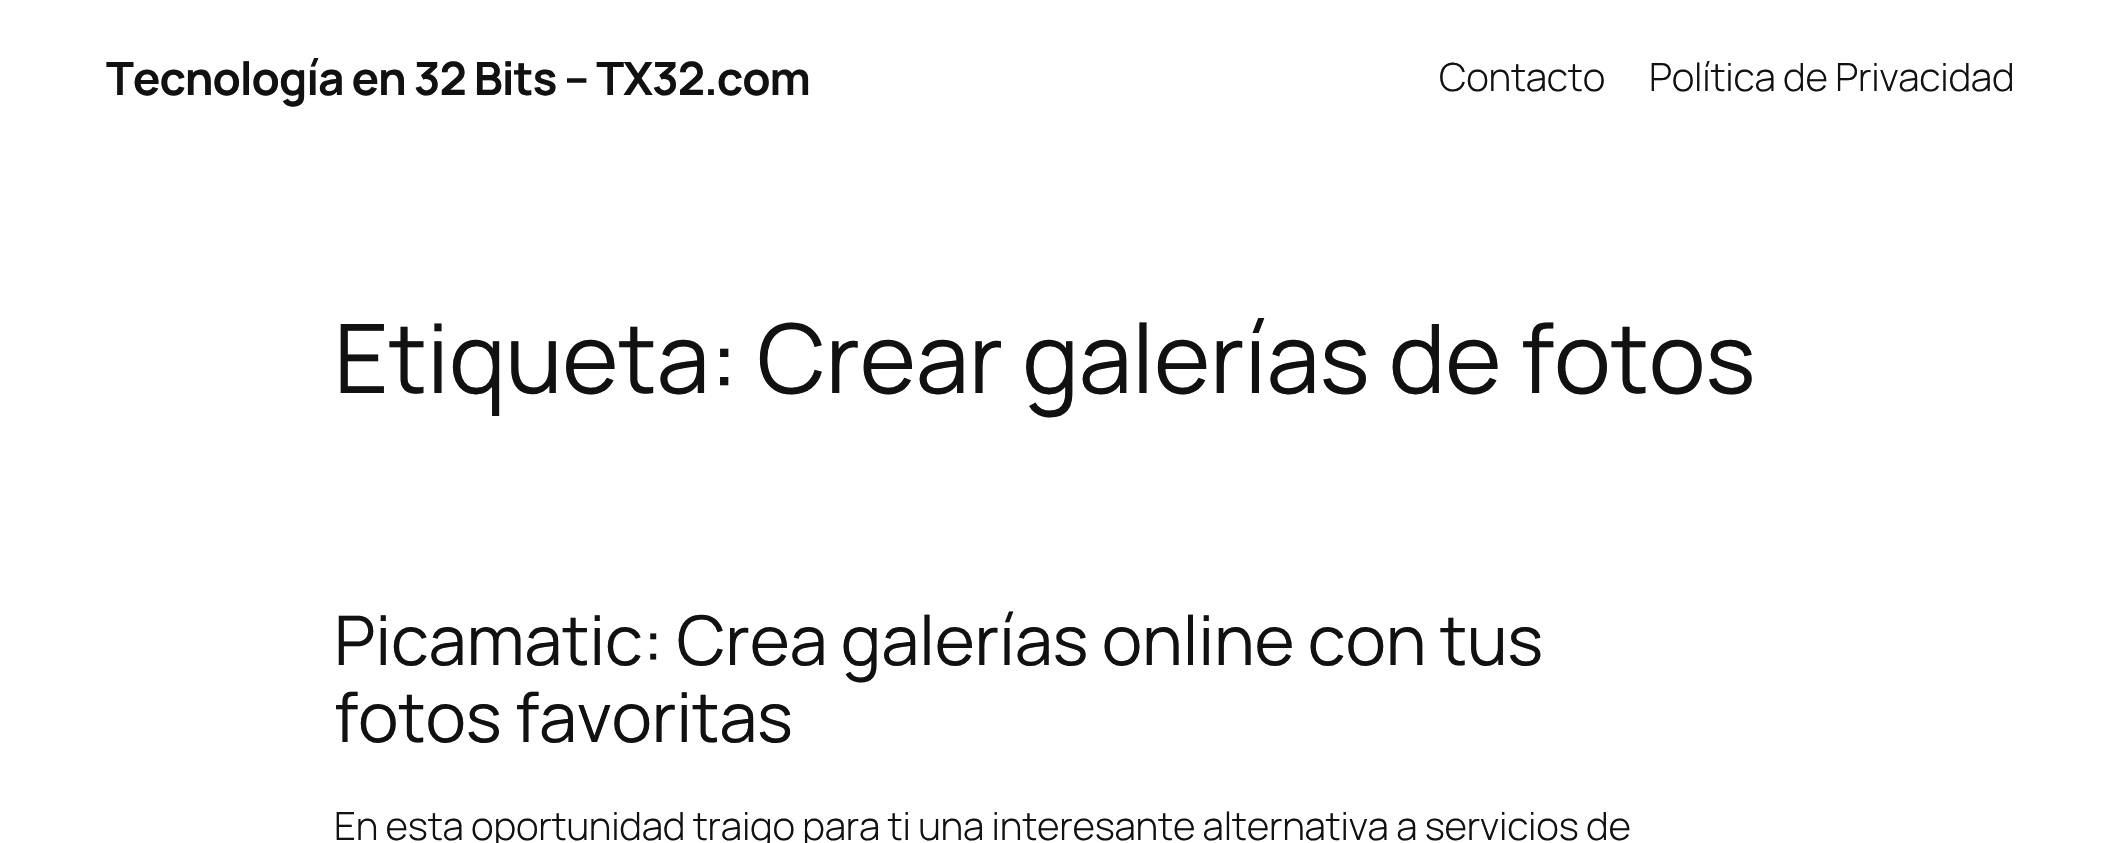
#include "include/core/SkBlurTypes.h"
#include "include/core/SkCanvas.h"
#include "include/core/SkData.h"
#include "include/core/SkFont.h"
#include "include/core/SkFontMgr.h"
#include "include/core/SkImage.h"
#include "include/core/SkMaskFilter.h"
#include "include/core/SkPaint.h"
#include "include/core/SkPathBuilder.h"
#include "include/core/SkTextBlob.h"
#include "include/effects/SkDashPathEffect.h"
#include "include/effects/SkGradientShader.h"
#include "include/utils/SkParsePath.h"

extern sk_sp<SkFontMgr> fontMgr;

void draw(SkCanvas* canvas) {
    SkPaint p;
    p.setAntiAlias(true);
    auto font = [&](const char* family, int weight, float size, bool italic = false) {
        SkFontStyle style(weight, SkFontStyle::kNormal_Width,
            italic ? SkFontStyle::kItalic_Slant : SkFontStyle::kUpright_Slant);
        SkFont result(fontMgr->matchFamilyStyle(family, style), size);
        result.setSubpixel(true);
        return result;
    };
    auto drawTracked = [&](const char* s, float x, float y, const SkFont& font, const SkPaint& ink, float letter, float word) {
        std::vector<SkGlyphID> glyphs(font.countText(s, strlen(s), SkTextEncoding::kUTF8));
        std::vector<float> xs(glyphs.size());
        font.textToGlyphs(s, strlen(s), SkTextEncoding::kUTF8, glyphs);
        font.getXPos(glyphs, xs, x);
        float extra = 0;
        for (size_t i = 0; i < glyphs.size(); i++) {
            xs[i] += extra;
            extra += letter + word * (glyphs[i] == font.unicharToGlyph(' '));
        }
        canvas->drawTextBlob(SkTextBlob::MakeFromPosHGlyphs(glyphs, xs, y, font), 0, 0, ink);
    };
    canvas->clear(0xFFFFFFFF);
    auto font1 = font("Manrope", 700, 46);
    p.setColor(0xFF111111);
    drawTracked("Tecnología en 32 Bits – TX32.com", 106, 95, font1, p, -1.1f, 0);
    auto font2 = font("Manrope", 300, 38.75f);
    drawTracked("Contacto", 1439, 91, font2, p, -0.23f, 0);
    drawTracked("Política de Privacidad", 1649, 91, font2, p, -0.23f, 0);
    auto font3 = font("Manrope", 400, 96);
    drawTracked("Etiqueta: Crear galerías de fotos", 334, 393, font3, p, -0.23f, 0);
    auto font4 = font("Manrope", 400, 68.5f);
    drawTracked("Picamatic: Crea galerías online con tus", 334, 665, font4, p, -0.23f, 0);
    drawTracked("fotos favoritas", 334, 742, font4, p, -0.23f, 0);
    drawTracked("En esta oportunidad traigo para ti una interesante alternativa a servicios de", 334, 840, font2, p, -0.23f, 0);
}
